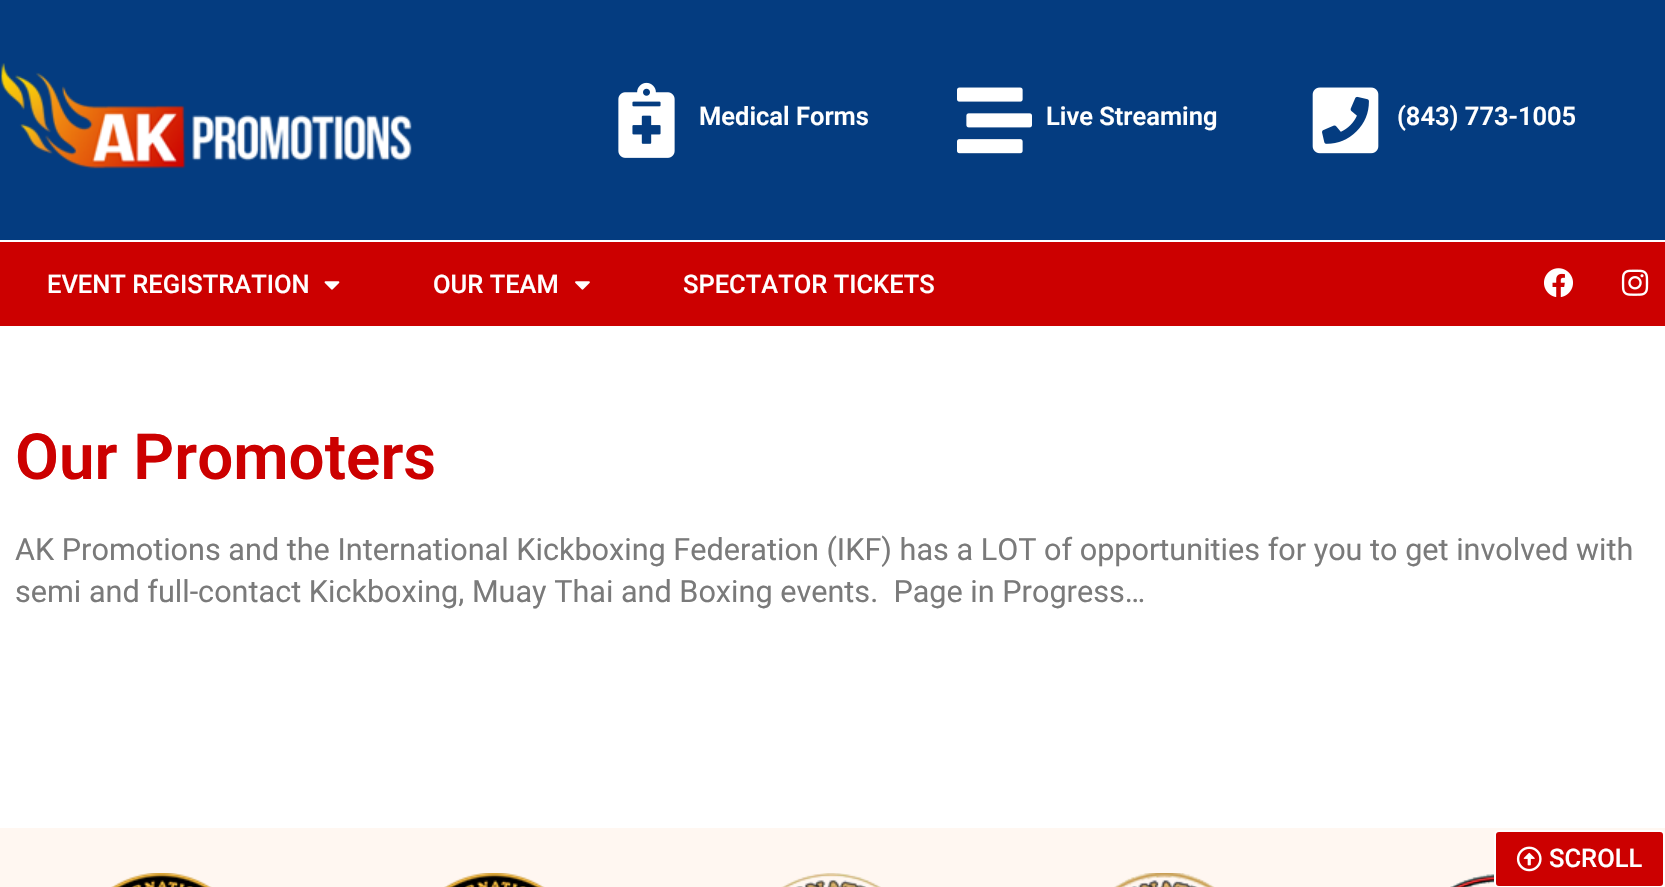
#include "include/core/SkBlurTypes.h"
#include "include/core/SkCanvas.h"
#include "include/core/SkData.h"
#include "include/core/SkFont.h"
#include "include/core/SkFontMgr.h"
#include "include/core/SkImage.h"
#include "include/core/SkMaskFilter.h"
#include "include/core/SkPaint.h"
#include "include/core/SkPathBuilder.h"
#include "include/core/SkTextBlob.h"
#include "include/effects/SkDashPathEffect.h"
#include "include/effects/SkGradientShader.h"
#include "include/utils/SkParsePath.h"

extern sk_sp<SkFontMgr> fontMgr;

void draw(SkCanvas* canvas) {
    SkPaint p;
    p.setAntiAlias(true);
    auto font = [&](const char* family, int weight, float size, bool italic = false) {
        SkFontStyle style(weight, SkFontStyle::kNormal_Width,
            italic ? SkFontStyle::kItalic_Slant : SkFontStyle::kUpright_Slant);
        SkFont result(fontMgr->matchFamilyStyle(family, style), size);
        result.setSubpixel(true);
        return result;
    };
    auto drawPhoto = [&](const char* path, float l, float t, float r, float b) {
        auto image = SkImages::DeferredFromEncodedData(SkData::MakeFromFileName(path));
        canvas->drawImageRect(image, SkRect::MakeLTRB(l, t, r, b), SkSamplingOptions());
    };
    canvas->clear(0xFFFFFFFF);
    p.setColor(0xFF043C80);
    canvas->drawRect(SkRect::MakeLTRB(0, 0, 1665, 240), p);
    drawPhoto("media/1.png", 1, 63, 412, 169);
    drawPhoto("media/2.png", 618, 82, 675, 158);
    auto font1 = font("Roboto", 600, 25.5f);
    p.setColor(0xFFFFFFFF);
    canvas->drawString("Medical Forms", 699, 125, font1, p);
    drawPhoto("media/3.png", 957, 87, 1032, 154);
    canvas->drawString("Live Streaming", 1046, 125, font1, p);
    drawPhoto("media/4.png", 1312, 87, 1379, 154);
    canvas->drawString("(843) 773-1005", 1397, 125, font1, p);
    p.setColor(0xFFCC0000);
    canvas->drawRect(SkRect::MakeLTRB(0, 242, 1665, 326), p);
    auto font2 = font("Roboto", 500, 25.5f);
    p.setColor(0xFFFFFFFF);
    canvas->drawString("EVENT REGISTRATION", 47, 293, font2, p);
    drawPhoto("media/5.png", 324, 281, 340, 290);
    canvas->drawString("OUR TEAM", 433, 293, font2, p);
    drawPhoto("media/6.png", 575, 281, 590, 290);
    canvas->drawString("SPECTATOR TICKETS", 683, 293, font2, p);
    drawPhoto("media/7.png", 1544, 268, 1573, 297);
    drawPhoto("media/8.png", 1621, 269, 1649, 296);
    auto font3 = font("Roboto", 600, 63.75f);
    p.setColor(0xFFCC0000);
    canvas->drawString("Our Promoters", 15, 479, font3, p);
    auto font4 = font("Roboto", 400, 30.6f);
    p.setColor(0xFF7A7A7A);
    canvas->drawString("AK Promotions and the International Kickboxing Federation (IKF) has a LOT of opportunities for you to get involved with", 15, 560, font4, p);
    canvas->drawString("semi and full-contact Kickboxing, Muay Thai and Boxing events.  Page in Progress…", 15, 602, font4, p);
    p.setColor(0xFFFFF7F1);
    canvas->drawRect(SkRect::MakeLTRB(0, 828, 1665, 887), p);
    drawPhoto("media/9.png", 111, 873, 212, 887);
    drawPhoto("media/10.png", 444, 873, 545, 887);
    drawPhoto("media/11.png", 781, 873, 881, 887);
    drawPhoto("media/12.png", 1114, 873, 1215, 887);
    drawPhoto("media/13.png", 1450, 874, 1496, 887);
    p.setColor(0xFFCC0000);
    canvas->drawRoundRect(SkRect::MakeLTRB(1495, 831, 1664, 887), 4, 4, p);
    p.setStyle(SkPaint::kStroke_Style);
    p.setStrokeWidth(2);
    p.setColor(0xFFFFFFFF);
    canvas->drawRoundRect(SkRect::MakeLTRB(1495, 831, 1664, 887), 4, 4, p);
    drawPhoto("media/14.png", 1516, 846, 1542, 872);
    p.setStyle(SkPaint::kFill_Style);
    canvas->drawString("SCROLL", 1549, 867, font2, p);
}
